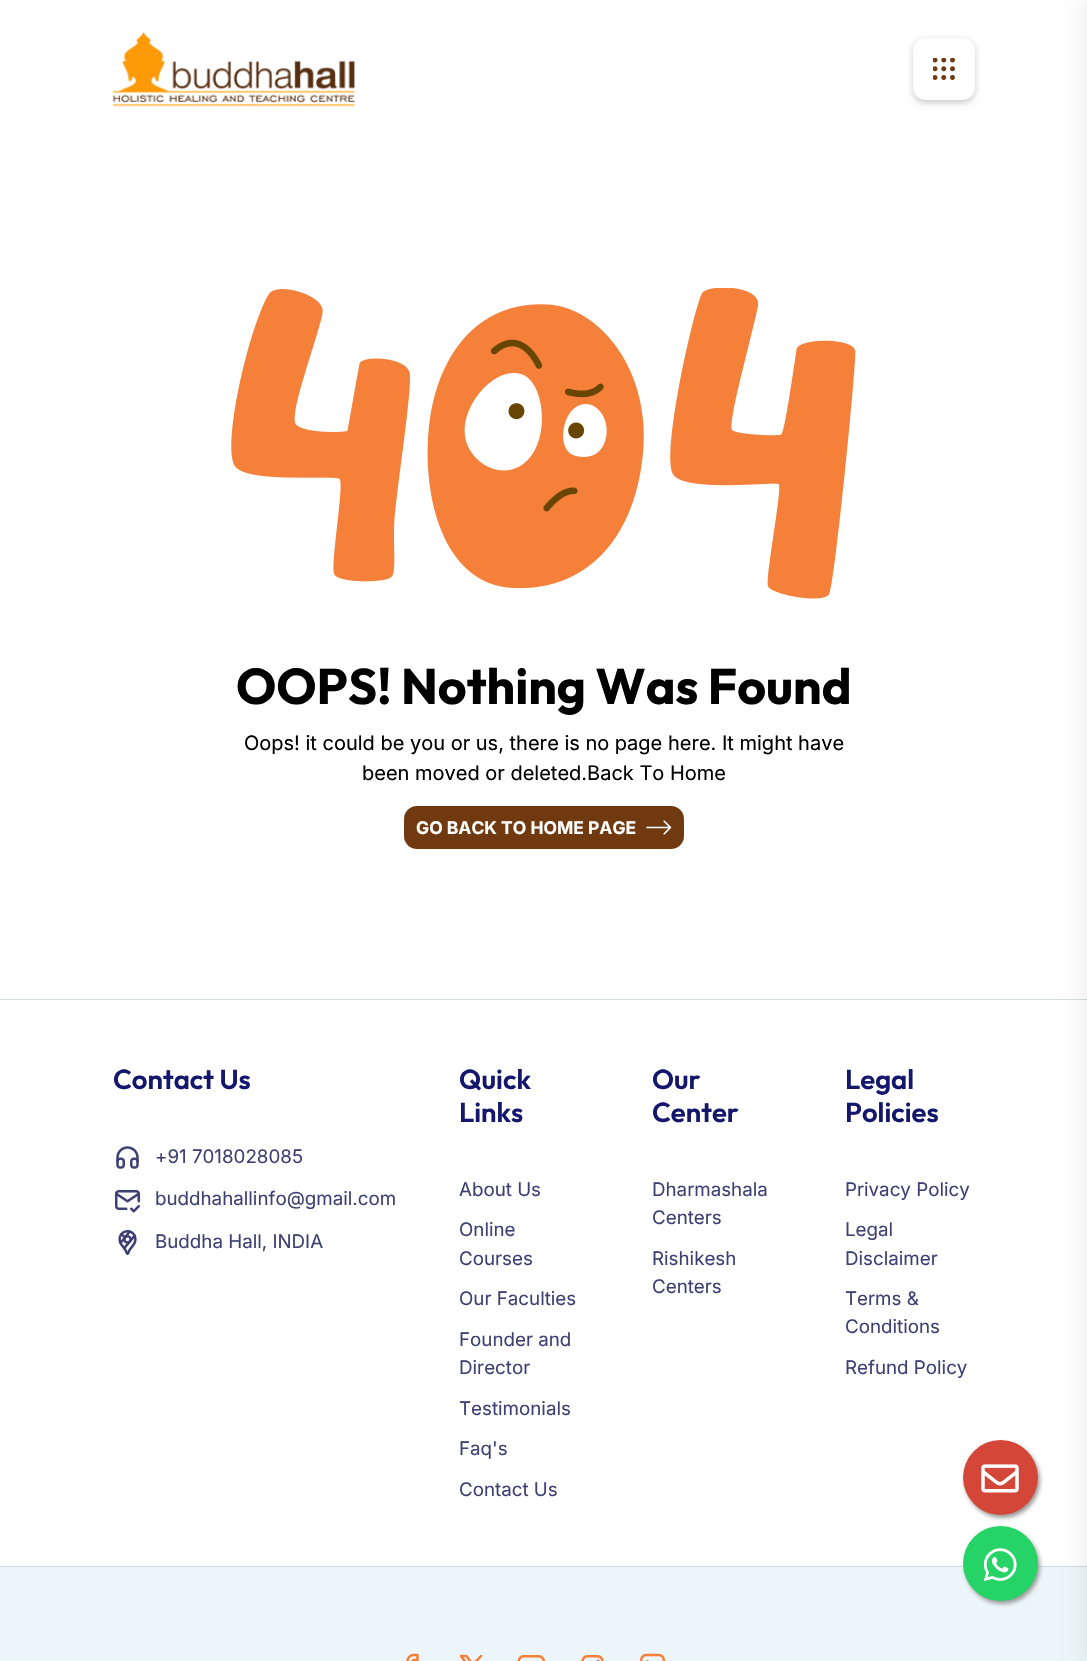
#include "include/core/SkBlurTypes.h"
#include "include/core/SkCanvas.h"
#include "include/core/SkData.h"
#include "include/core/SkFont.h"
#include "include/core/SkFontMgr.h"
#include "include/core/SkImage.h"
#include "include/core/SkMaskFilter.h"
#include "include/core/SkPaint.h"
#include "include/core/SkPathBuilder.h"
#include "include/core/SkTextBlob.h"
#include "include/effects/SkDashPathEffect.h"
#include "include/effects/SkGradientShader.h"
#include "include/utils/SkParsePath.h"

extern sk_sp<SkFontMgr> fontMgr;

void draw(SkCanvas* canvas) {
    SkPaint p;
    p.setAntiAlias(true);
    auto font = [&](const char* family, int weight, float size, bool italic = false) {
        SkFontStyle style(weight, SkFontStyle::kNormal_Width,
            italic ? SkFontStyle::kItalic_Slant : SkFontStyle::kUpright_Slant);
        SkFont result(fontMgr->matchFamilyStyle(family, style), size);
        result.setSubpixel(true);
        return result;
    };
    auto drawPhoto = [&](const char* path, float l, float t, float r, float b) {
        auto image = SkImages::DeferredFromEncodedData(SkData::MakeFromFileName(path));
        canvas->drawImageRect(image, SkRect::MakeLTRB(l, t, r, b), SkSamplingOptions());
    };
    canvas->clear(0xFFFFFFFF);
    drawPhoto("media/1.png", 112, 31, 355, 107);
    p.setColor(0x33000000);
    p.setMaskFilter(SkMaskFilter::MakeBlur(kNormal_SkBlurStyle, 3));
    canvas->drawRoundRect(SkRect::MakeLTRB(913, 40, 975, 103), 13, 13, p);
    p.setMaskFilter(nullptr);
    p.setColor(0xFFFFFFFF);
    canvas->drawRoundRect(SkRect::MakeLTRB(913, 38, 975, 100), 13, 13, p);
    drawPhoto("media/2.png", 933, 58, 955, 80);
    {
        const struct { float l, t, r, b; SkColor color; } items[] = {
            {0, 999, 1087, 1000, 0xFFCFDDE2},
            {0, 1567, 1087, 1661, 0xFFECF6FA},
            {0, 1566, 1087, 1567, 0xFFCFDDE2},
        };
        for (auto [l, t, r, b, color] : items) {
            p.setColor(color);
            canvas->drawRect(SkRect::MakeLTRB(l, t, r, b), p);
        }
    }
    p.setColor(0x0F000000);
    p.setMaskFilter(SkMaskFilter::MakeBlur(kNormal_SkBlurStyle, 9));
    canvas->drawRect(SkRect::MakeLTRB(1080, 0, 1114, 1661), p);
    p.setMaskFilter(nullptr);
    drawPhoto("media/3.png", 231, 288, 856, 599);
    auto font1 = font("Outfit", 700, 50);
    p.setColor(0xFF000000);
    canvas->drawString("OOPS! Nothing Was Found", 236, 704, font1, p);
    auto font2 = font("Inter", 400, 20);
    canvas->drawString("Oops! it could be you or us, there is no page here. It might have", 244, 750, font2, p);
    canvas->drawString("been moved or deleted.Back To Home", 362, 780, font2, p);
    p.setColor(0xFF70390F);
    canvas->drawRoundRect(SkRect::MakeLTRB(404, 806, 684, 849), 13, 13, p);
    auto font3 = font("Inter", 700, 17.5f);
    p.setColor(0xFFFFFFFF);
    canvas->drawString("GO BACK TO HOME PAGE", 416, 834, font3, p);
    drawPhoto("media/4.png", 646, 820, 672, 835);
    auto font4 = font("Outfit", 600, 27.5f);
    p.setColor(0xFF14176C);
    canvas->drawString("Contact Us", 113, 1089, font4, p);
    drawPhoto("media/5.png", 116, 1146, 139, 1169);
    auto font5 = font("Inter", 400, 18.75f);
    p.setColor(0xFF3E4073);
    canvas->drawString("+91 7018028085", 155, 1163, font5, p);
    drawPhoto("media/6.png", 115, 1190, 140, 1213);
    canvas->drawString("buddhahallinfo@gmail.com", 155, 1205, font5, p);
    drawPhoto("media/7.png", 118, 1230, 137, 1255);
    canvas->drawString("Buddha Hall, INDIA", 155, 1248, font5, p);
    p.setColor(0xFF14176C);
    canvas->drawString("Quick", 459, 1089, font4, p);
    canvas->drawString("Links", 459, 1122, font4, p);
    p.setColor(0xFF3E4073);
    {
        const struct { const char* s; float x, y; } items[] = {
            {"About Us", 459, 1196},
            {"Online", 459, 1236},
            {"Courses", 459, 1265},
            {"Our Faculties", 459, 1305},
            {"Founder and", 459, 1346},
            {"Director", 459, 1374},
            {"Testimonials", 459, 1415},
            {"Faq's", 459, 1455},
            {"Contact Us", 459, 1496},
        };
        for (auto [s, x, y] : items) {
            canvas->drawString(s, x, y, font5, p);
        }
    }
    p.setColor(0xFF14176C);
    canvas->drawString("Our", 652, 1089, font4, p);
    canvas->drawString("Center", 652, 1122, font4, p);
    p.setColor(0xFF3E4073);
    {
        const struct { const char* s; float x, y; } items[] = {
            {"Dharmashala", 652, 1196},
            {"Centers", 652, 1224},
            {"Rishikesh", 652, 1265},
            {"Centers", 652, 1293},
        };
        for (auto [s, x, y] : items) {
            canvas->drawString(s, x, y, font5, p);
        }
    }
    p.setColor(0xFF14176C);
    canvas->drawString("Legal", 845, 1089, font4, p);
    canvas->drawString("Policies", 845, 1122, font4, p);
    p.setColor(0xFF3E4073);
    {
        const struct { const char* s; float x, y; } items[] = {
            {"Privacy Policy", 845, 1196},
            {"Legal", 845, 1236},
            {"Disclaimer", 845, 1265},
            {"Terms &", 845, 1305},
            {"Conditions", 845, 1333},
            {"Refund Policy", 845, 1374},
        };
        for (auto [s, x, y] : items) {
            canvas->drawString(s, x, y, font5, p);
        }
    }
    drawPhoto("media/8.png", 406, 1653, 419, 1661);
    p.setStyle(SkPaint::kStroke_Style);
    p.setStrokeWidth(2.5f);
    p.setStrokeCap(SkPaint::kRound_Cap);
    p.setStrokeJoin(SkPaint::kRound_Join);
    p.setColor(0xFFF4803A);
    canvas->drawPath(SkPathBuilder().moveTo(461, 1656).lineTo(476, 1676).lineTo(481, 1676).lineTo(466.5f, 1656).close().moveTo(461, 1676).lineTo(469.5f, 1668).moveTo(473, 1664.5f).lineTo(481, 1656).detach(), p);
    drawPhoto("media/9.png", 517, 1655, 545, 1661);
    drawPhoto("media/10.png", 581, 1655, 604, 1661);
    drawPhoto("media/11.png", 640, 1653, 665, 1661);
    p.setStyle(SkPaint::kFill_Style);
    p.setColor(0xFF999999);
    p.setMaskFilter(SkMaskFilter::MakeBlur(kNormal_SkBlurStyle, 2));
    canvas->drawRoundRect(SkRect::MakeLTRB(965, 1443, 1040, 1518), 37.5f, 37.5f, p);
    p.setMaskFilter(nullptr);
    p.setColor(0xFFD44638);
    canvas->drawCircle(1000.5f, 1477.5f, 37.5f, p);
    drawPhoto("media/12.png", 981, 1464, 1019, 1493);
    p.setColor(0xFF999999);
    p.setMaskFilter(SkMaskFilter::MakeBlur(kNormal_SkBlurStyle, 2));
    canvas->drawRoundRect(SkRect::MakeLTRB(965, 1529, 1040, 1604), 37.5f, 37.5f, p);
    p.setMaskFilter(nullptr);
    p.setColor(0xFF25D366);
    canvas->drawCircle(1000.5f, 1563.5f, 37.5f, p);
    drawPhoto("media/13.png", 983, 1548, 1017, 1581);
}
